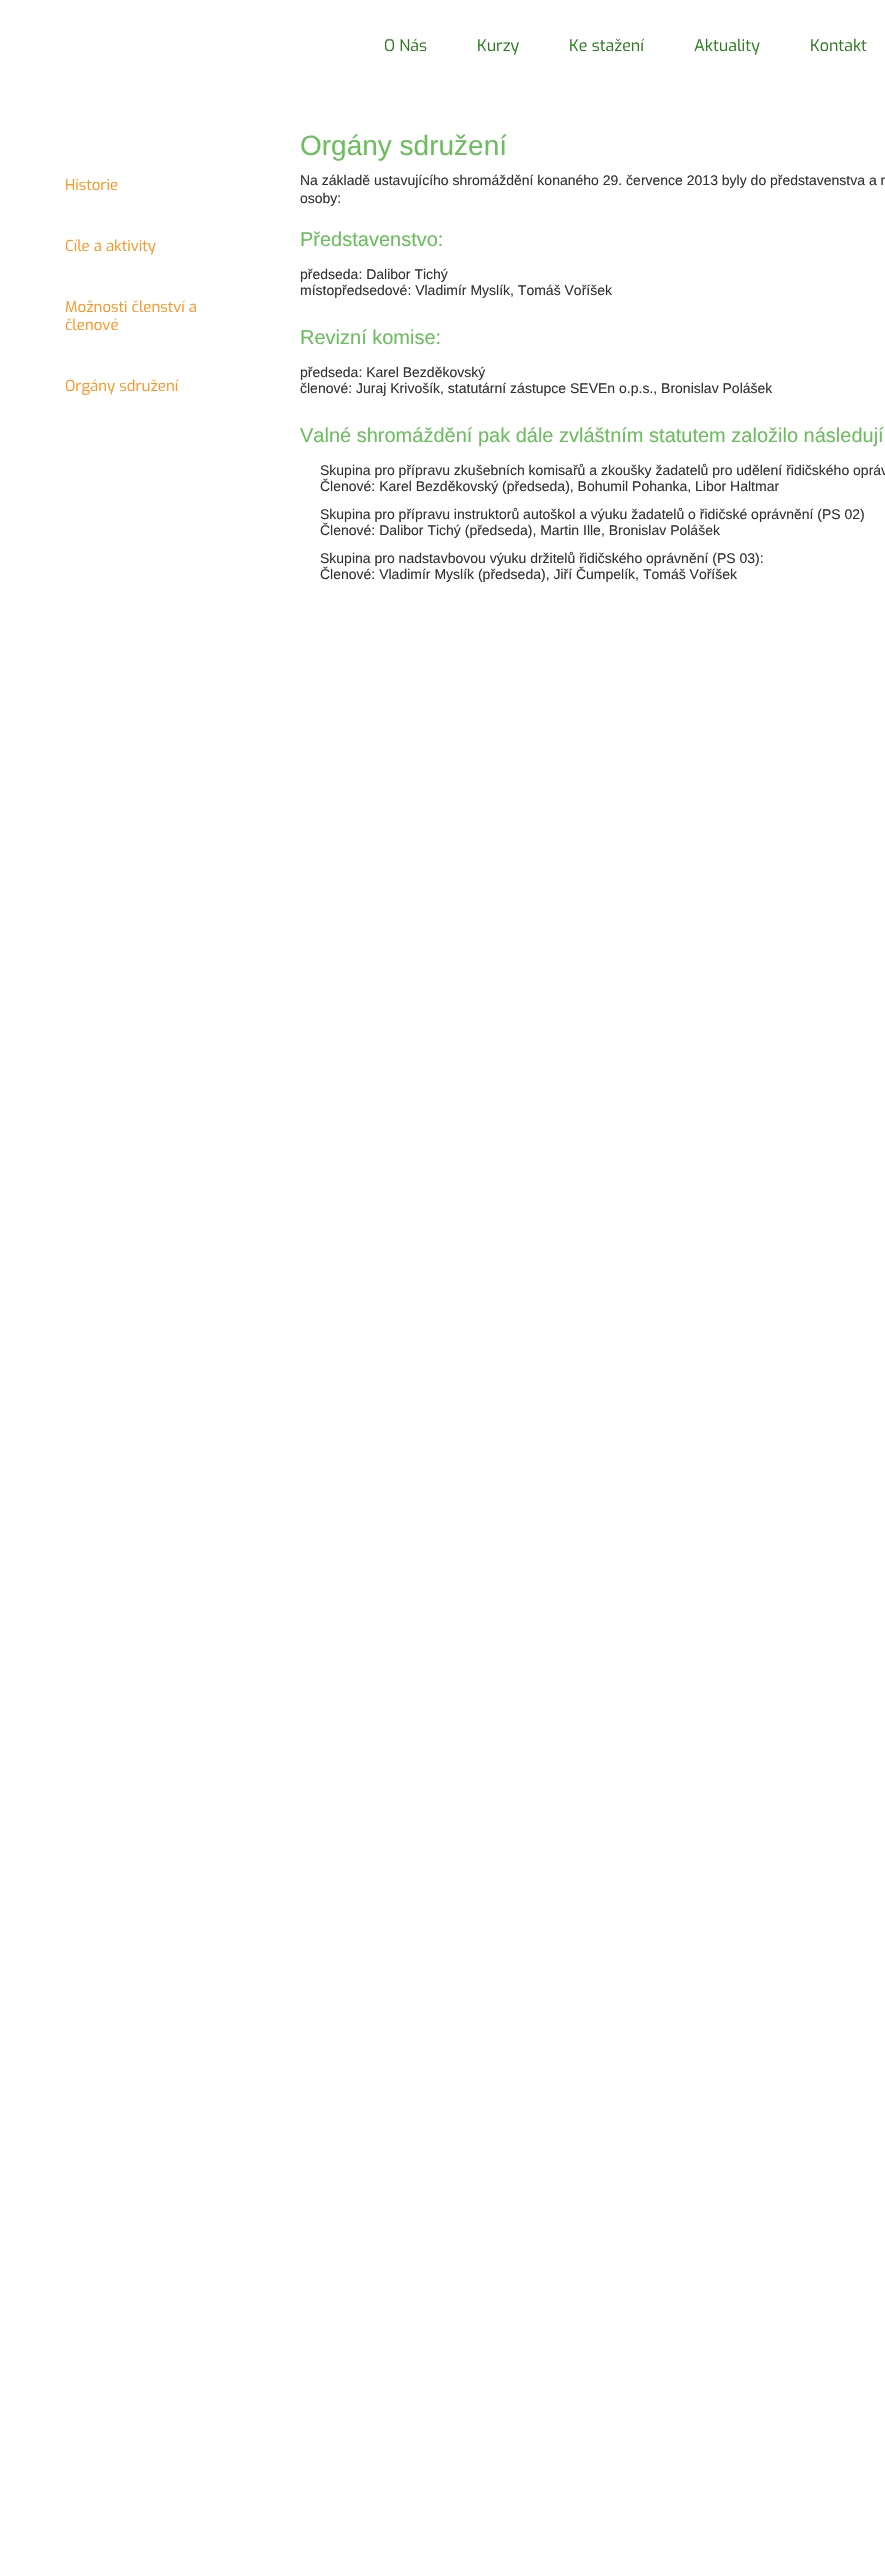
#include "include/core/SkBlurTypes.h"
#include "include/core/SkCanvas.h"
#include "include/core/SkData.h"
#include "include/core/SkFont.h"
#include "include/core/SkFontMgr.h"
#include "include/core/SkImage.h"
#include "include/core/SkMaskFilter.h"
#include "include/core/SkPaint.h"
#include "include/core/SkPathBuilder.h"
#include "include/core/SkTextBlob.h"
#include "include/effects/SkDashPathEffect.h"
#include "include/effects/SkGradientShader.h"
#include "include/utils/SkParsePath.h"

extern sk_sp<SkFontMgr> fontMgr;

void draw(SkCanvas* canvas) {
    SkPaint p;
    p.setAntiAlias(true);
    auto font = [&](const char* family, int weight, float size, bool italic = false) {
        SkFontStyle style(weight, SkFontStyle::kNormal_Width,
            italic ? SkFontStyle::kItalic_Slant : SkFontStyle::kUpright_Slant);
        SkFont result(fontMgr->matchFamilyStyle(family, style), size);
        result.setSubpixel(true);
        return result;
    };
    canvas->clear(0xFFFFFFFF);
    auto font1 = font("Exo", 400, 16);
    p.setColor(0xFF2B7B1F);
    {
        const struct { const char* s; float x, y; } items[] = {
            {"O Nás", 384, 51},
            {"Kurzy", 477, 51},
            {"Ke stažení", 569, 51},
            {"Aktuality", 694, 51},
            {"Kontakt", 810, 51},
        };
        for (auto [s, x, y] : items) {
            canvas->drawString(s, x, y, font1, p);
        }
    }
    auto font2 = font("Exo", 400, 15);
    p.setColor(0xFFFF931F);
    {
        const struct { const char* s; float x, y; } items[] = {
            {"Historie", 65, 190},
            {"Cíle a aktivity", 65, 251},
            {"Možnosti členství a", 65, 312},
            {"členové", 65, 330},
            {"Orgány sdružení", 65, 391},
        };
        for (auto [s, x, y] : items) {
            canvas->drawString(s, x, y, font2, p);
        }
    }
    auto font3 = font("Liberation Sans", 400, 28);
    p.setColor(0xFF6BBD5E);
    canvas->drawString("Orgány sdružení", 300, 155, font3, p);
    auto font4 = font("Liberation Sans", 400, 14);
    p.setColor(0xFF323232);
    canvas->drawString("Na základě ustavujícího shromáždění konaného 29. července 2013 byly do představenstva a r", 300, 185, font4, p);
    canvas->drawString("osoby:", 300, 203, font4, p);
    auto font5 = font("Liberation Sans", 400, 20);
    p.setColor(0xFF6BBD5E);
    canvas->drawString("Představenstvo:", 300, 246, font5, p);
    p.setColor(0xFF323232);
    canvas->drawString("předseda: Dalibor Tichý", 300, 279, font4, p);
    canvas->drawString("místopředsedové: Vladimír Myslík, Tomáš Voříšek", 300, 295, font4, p);
    p.setColor(0xFF6BBD5E);
    canvas->drawString("Revizní komise:", 300, 344, font5, p);
    p.setColor(0xFF323232);
    canvas->drawString("předseda: Karel Bezděkovský", 300, 377, font4, p);
    canvas->drawString("členové: Juraj Krivošík, statutární zástupce SEVEn o.p.s., Bronislav Polášek", 300, 393, font4, p);
    p.setColor(0xFF6BBD5E);
    canvas->drawString("Valné shromáždění pak dále zvláštním statutem založilo následují", 300, 442, font5, p);
    p.setColor(0xFF323232);
    {
        const struct { const char* s; float x, y; } items[] = {
            {"Skupina pro přípravu zkušebních komisařů a zkoušky žadatelů pro udělení řidičského opráv", 320, 475},
            {"Členové: Karel Bezděkovský (předseda), Bohumil Pohanka, Libor Haltmar", 320, 491},
            {"Skupina pro přípravu instruktorů autoškol a výuku žadatelů o řidičské oprávnění (PS 02)", 320, 519},
            {"Členové: Dalibor Tichý (předseda), Martin Ille, Bronislav Polášek", 320, 535},
            {"Skupina pro nadstavbovou výuku držitelů řidičského oprávnění (PS 03):", 320, 563},
            {"Členové: Vladimír Myslík (předseda), Jiří Čumpelík, Tomáš Voříšek", 320, 579},
        };
        for (auto [s, x, y] : items) {
            canvas->drawString(s, x, y, font4, p);
        }
    }
}
